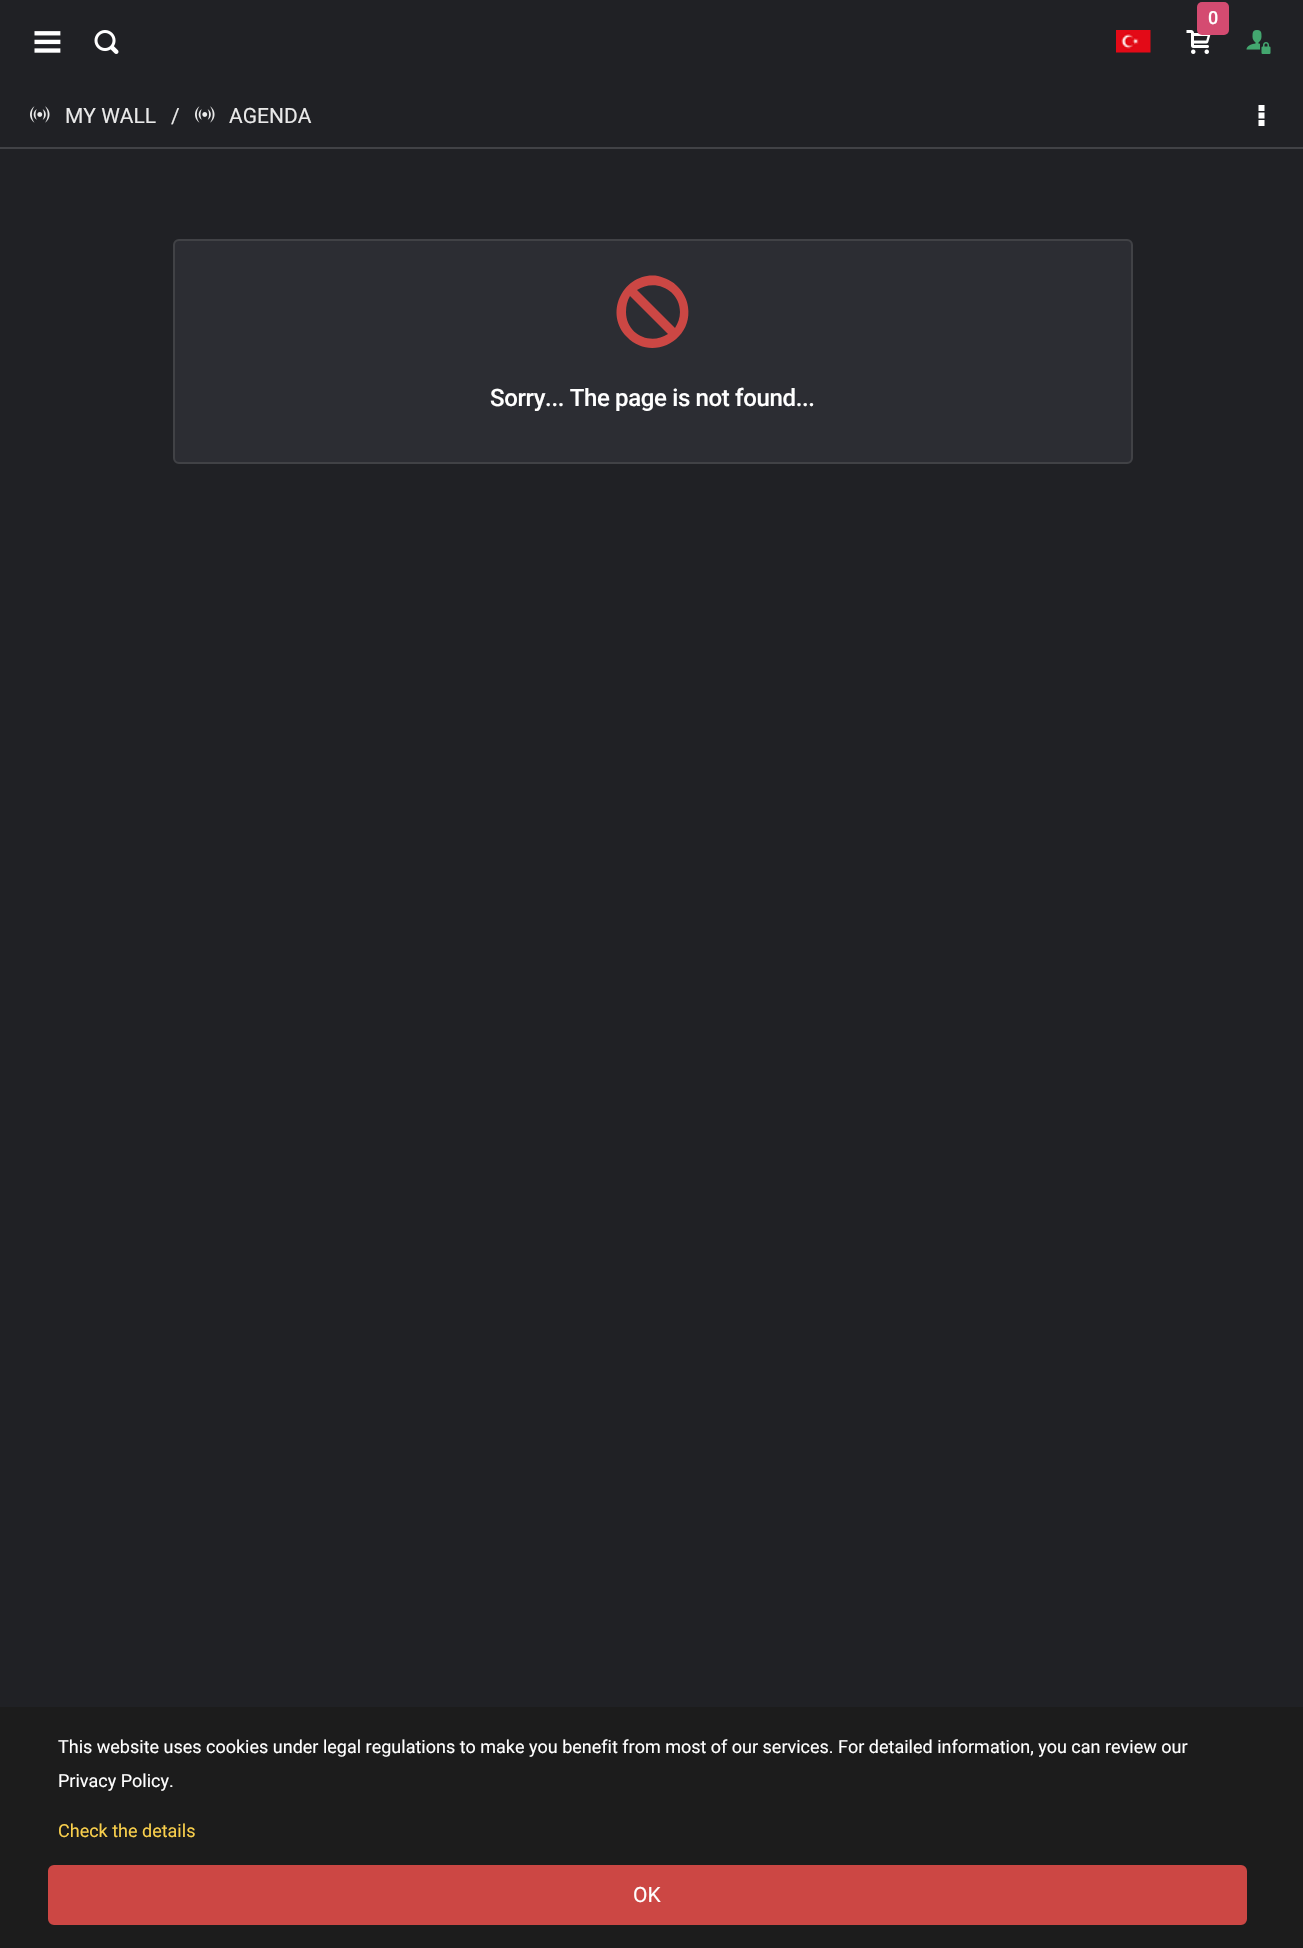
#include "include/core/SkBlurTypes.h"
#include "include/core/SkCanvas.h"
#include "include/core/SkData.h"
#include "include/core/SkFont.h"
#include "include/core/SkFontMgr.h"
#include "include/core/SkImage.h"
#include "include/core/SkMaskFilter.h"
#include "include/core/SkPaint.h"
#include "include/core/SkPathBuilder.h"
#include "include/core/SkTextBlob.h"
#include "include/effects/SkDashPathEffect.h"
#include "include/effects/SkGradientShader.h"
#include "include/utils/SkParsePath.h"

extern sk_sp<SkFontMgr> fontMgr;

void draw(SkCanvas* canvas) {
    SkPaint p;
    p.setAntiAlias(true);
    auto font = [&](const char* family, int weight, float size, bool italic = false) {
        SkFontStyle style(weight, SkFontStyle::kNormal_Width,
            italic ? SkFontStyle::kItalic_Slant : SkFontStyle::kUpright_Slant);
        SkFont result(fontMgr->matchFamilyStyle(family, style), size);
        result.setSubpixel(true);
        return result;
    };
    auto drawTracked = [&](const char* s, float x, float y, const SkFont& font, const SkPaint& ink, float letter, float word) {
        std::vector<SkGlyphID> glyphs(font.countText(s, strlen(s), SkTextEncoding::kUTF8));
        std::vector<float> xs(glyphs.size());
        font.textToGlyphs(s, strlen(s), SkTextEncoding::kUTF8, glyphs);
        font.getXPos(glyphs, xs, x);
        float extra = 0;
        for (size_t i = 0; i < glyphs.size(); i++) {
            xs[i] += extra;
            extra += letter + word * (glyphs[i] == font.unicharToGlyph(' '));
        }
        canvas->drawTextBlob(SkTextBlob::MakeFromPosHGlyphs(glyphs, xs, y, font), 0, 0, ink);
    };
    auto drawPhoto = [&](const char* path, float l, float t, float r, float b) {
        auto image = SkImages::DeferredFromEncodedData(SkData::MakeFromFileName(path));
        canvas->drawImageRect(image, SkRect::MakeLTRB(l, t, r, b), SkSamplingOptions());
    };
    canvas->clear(0xFF202125);
    drawPhoto("media/1.png", 1186, 30, 1211, 54);
    p.setColor(0xFFD44B71);
    canvas->drawRoundRect(SkRect::MakeLTRB(1197, 2, 1229, 35), 5, 5, p);
    auto font1 = font("Roboto", 500, 18);
    p.setColor(0xFFFFFFFF);
    canvas->drawString("0", 1208, 24, font1, p);
    drawPhoto("media/2.png", 1116, 30, 1151, 53);
    drawPhoto("media/3.png", 1246, 30, 1271, 54);
    drawPhoto("media/4.png", 34, 31, 61, 53);
    drawPhoto("media/5.png", 94, 30, 119, 54);
    p.setColor(0xFF414246);
    canvas->drawRect(SkRect::MakeLTRB(0, 147, 1303, 149), p);
    drawPhoto("media/6.png", 30, 106, 50, 123);
    auto font2 = font("Roboto", 400, 21);
    p.setColor(0xFFE9E9E9);
    canvas->drawString("MY WALL", 65, 123, font2, p);
    canvas->drawString("/", 171, 123, font2, p);
    drawPhoto("media/6.png", 195, 106, 215, 123);
    canvas->drawString("AGENDA", 229, 123, font2, p);
    drawPhoto("media/7.png", 1258, 105, 1265, 126);
    p.setColor(0xFF2C2D33);
    canvas->drawRoundRect(SkRect::MakeLTRB(174, 240, 1132, 463), 5, 5, p);
    p.setStyle(SkPaint::kStroke_Style);
    p.setStrokeWidth(2);
    p.setColor(0xFF414246);
    canvas->drawRoundRect(SkRect::MakeLTRB(174, 240, 1132, 463), 5, 5, p);
    p.setStyle(SkPaint::kFill_Style);
    p.setColor(0xFFCC4744);
    canvas->drawPath(SkPathBuilder().moveTo(678, 287).cubicTo(673, 281, 665, 278, 658, 276).cubicTo(624, 271, 603, 313, 627, 337).cubicTo(651, 362, 693, 341, 688, 307).cubicTo(687, 299, 683, 292, 678, 287).close().moveTo(680, 312).cubicTo(680, 318, 678, 323, 675, 328).lineTo(637, 290).cubicTo(655, 278, 680, 290, 680, 312).close().moveTo(626, 312).cubicTo(626, 306, 627, 301, 630, 296).lineTo(668, 334).cubicTo(650, 346, 626, 334, 626, 312).close().detach(), p);
    auto font3 = font("Roboto", 500, 24);
    p.setColor(0xFFFFFFFF);
    drawTracked("Sorry... The page is not found...", 490, 406, font3, p, -0.35f, 0);
    p.setColor(0xFF1C1C1C);
    canvas->drawRect(SkRect::MakeLTRB(0, 1707, 1303, 1948), p);
    auto font4 = font("Roboto", 400, 18);
    p.setColor(0xFFFFFFFF);
    canvas->drawString("This website uses cookies under legal regulations to make you benefit from most of our services. For detailed information, you can review our", 58, 1753, font4, p);
    canvas->drawString("Privacy Policy.", 58, 1787, font4, p);
    p.setColor(0xFFFAD04C);
    canvas->drawString("Check the details", 58, 1837, font4, p);
    p.setColor(0xFFCC4744);
    canvas->drawRoundRect(SkRect::MakeLTRB(49, 1866, 1246, 1924), 5, 5, p);
    p.setStyle(SkPaint::kStroke_Style);
    canvas->drawRoundRect(SkRect::MakeLTRB(49, 1866, 1246, 1924), 5, 5, p);
    p.setStyle(SkPaint::kFill_Style);
    p.setColor(0xFFFFFFFF);
    canvas->drawString("OK", 633, 1902, font2, p);
}
